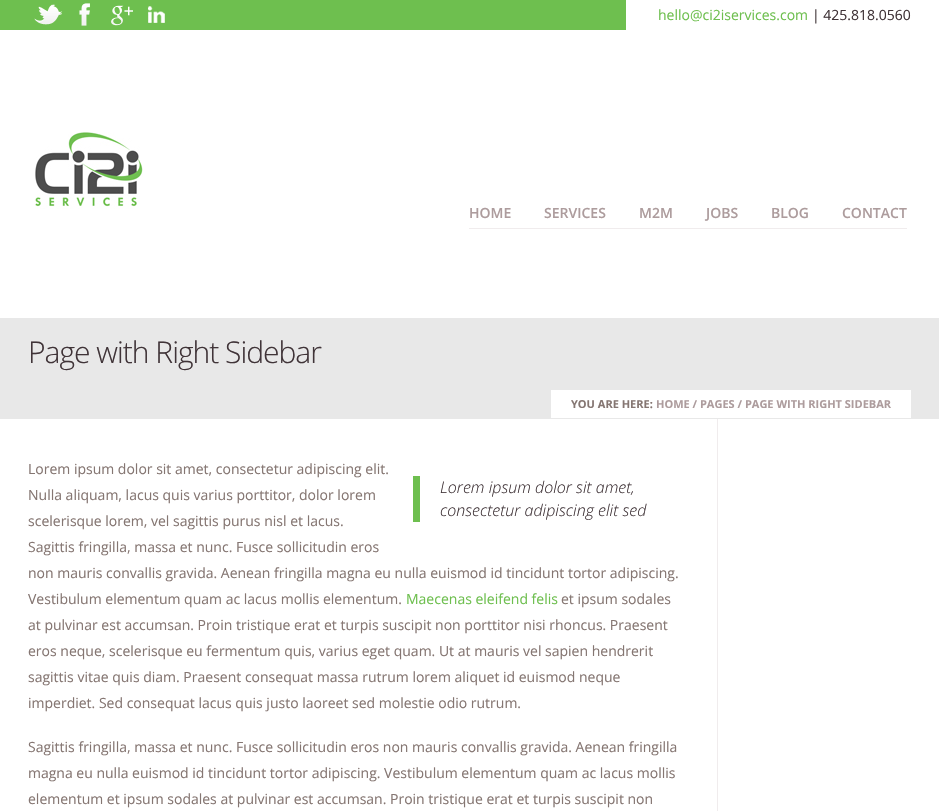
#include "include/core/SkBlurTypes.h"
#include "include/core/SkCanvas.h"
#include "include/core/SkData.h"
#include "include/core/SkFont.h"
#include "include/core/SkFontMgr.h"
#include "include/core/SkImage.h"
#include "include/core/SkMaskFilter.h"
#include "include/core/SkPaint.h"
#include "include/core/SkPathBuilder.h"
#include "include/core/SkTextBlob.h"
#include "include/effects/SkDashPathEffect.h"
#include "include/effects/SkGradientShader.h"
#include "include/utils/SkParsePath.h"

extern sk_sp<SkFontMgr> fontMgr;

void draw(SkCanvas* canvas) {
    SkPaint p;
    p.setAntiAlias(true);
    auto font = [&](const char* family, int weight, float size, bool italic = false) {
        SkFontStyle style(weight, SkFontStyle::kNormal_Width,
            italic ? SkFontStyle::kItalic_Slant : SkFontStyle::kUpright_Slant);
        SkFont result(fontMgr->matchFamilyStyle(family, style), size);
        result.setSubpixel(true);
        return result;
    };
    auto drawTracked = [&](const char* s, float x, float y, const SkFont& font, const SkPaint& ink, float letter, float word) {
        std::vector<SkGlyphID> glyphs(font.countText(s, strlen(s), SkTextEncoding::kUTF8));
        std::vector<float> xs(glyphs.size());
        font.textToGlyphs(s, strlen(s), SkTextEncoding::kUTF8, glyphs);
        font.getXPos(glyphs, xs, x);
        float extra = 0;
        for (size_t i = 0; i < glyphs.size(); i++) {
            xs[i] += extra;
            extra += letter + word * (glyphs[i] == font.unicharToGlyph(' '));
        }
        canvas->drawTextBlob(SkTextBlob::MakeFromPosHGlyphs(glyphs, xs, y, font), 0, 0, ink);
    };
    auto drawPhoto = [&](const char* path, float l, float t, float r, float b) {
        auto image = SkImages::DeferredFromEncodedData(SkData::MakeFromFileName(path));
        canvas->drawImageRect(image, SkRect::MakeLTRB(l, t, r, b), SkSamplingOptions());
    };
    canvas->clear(0xFFFFFFFF);
    p.setColor(0xFF6EBF4F);
    canvas->drawRect(SkRect::MakeLTRB(0, 0, 626, 30), p);
    drawPhoto("media/1.png", 34, 4, 63, 25);
    drawPhoto("media/2.png", 79, 3, 90, 26);
    drawPhoto("media/3.png", 111, 5, 133, 26);
    drawPhoto("media/4.png", 148, 6, 165, 23);
    auto font1 = font("Open Sans", 400, 14);
    canvas->drawString("hello@ci2iservices.com", 658, 20, font1, p);
    p.setColor(0xFF403438);
    canvas->drawString("| 425.818.0560", 812, 20, font1, p);
    drawPhoto("media/5.png", 35, 132, 143, 209);
    p.setColor(0xFFF0ECED);
    canvas->drawRect(SkRect::MakeLTRB(469, 228, 907, 229), p);
    auto font2 = font("Open Sans", 600, 14);
    p.setColor(0xFFAD9C9D);
    {
        const struct { const char* s; float x, y; } items[] = {
            {"HOME", 469, 218},
            {"SERVICES", 544, 218},
            {"M2M", 639, 218},
            {"JOBS", 706, 218},
            {"BLOG", 771, 218},
            {"CONTACT", 842, 218},
        };
        for (auto [s, x, y] : items) {
            canvas->drawString(s, x, y, font2, p);
        }
    }
    p.setColor(0xFFE8E8E8);
    canvas->drawRect(SkRect::MakeLTRB(0, 318, 939, 419), p);
    auto font3 = font("Open Sans", 300, 30);
    p.setColor(0xFF403438);
    drawTracked("Page with Right Sidebar", 28, 363, font3, p, -1, 0);
    p.setColor(0xFFFFFFFF);
    canvas->drawRect(SkRect::MakeLTRB(551, 390, 911, 418), p);
    auto font4 = font("Open Sans", 700, 11);
    p.setColor(0xFF857672);
    canvas->drawString("YOU ARE HERE:", 571, 408, font4, p);
    p.setColor(0xFFAD9C9D);
    canvas->drawString("HOME / PAGES / PAGE WITH RIGHT SIDEBAR", 656, 408, font4, p);
    p.setColor(0xFFF0ECED);
    canvas->drawRect(SkRect::MakeLTRB(717, 419, 718, 811), p);
    p.setColor(0xFF857672);
    {
        const struct { const char* s; float x, y; } items[] = {
            {"Lorem ipsum dolor sit amet, consectetur adipiscing elit.", 28, 474},
            {"Nulla aliquam, lacus quis varius porttitor, dolor lorem", 28, 500},
            {"scelerisque lorem, vel sagittis purus nisl et lacus.", 28, 526},
            {"Sagittis fringilla, massa et nunc. Fusce sollicitudin eros", 28, 552},
            {"non mauris convallis gravida. Aenean fringilla magna eu nulla euismod id tincidunt tortor adipiscing.", 28, 578},
            {"Vestibulum elementum quam ac lacus mollis elementum.", 28, 604},
        };
        for (auto [s, x, y] : items) {
            canvas->drawString(s, x, y, font1, p);
        }
    }
    p.setColor(0xFF6EBF4F);
    canvas->drawString("Maecenas eleifend felis", 406, 604, font1, p);
    p.setColor(0xFF857672);
    {
        const struct { const char* s; float x, y; } items[] = {
            {"et ipsum sodales", 561, 604},
            {"at pulvinar est accumsan. Proin tristique erat et turpis suscipit non porttitor nisi rhoncus. Praesent", 28, 630},
            {"eros neque, scelerisque eu fermentum quis, varius eget quam. Ut at mauris vel sapien hendrerit", 28, 656},
            {"sagittis vitae quis diam. Praesent consequat massa rutrum lorem aliquet id euismod neque", 28, 682},
            {"imperdiet. Sed consequat lacus quis justo laoreet sed molestie odio rutrum.", 28, 708},
        };
        for (auto [s, x, y] : items) {
            canvas->drawString(s, x, y, font1, p);
        }
    }
    p.setColor(0xFF6EBF4F);
    canvas->drawRect(SkRect::MakeLTRB(413, 476, 420, 522), p);
    auto font5 = font("Open Sans", 300, 16, true);
    p.setColor(0xFF403438);
    canvas->drawString("Lorem ipsum dolor sit amet,", 440, 493, font5, p);
    canvas->drawString("consectetur adipiscing elit sed", 440, 516, font5, p);
    p.setColor(0xFF857672);
    {
        const struct { const char* s; float x, y; } items[] = {
            {"Sagittis fringilla, massa et nunc. Fusce sollicitudin eros non mauris convallis gravida. Aenean fringilla", 28, 752},
            {"magna eu nulla euismod id tincidunt tortor adipiscing. Vestibulum elementum quam ac lacus mollis", 28, 778},
            {"elementum et ipsum sodales at pulvinar est accumsan. Proin tristique erat et turpis suscipit non", 28, 804},
        };
        for (auto [s, x, y] : items) {
            canvas->drawString(s, x, y, font1, p);
        }
    }
}
